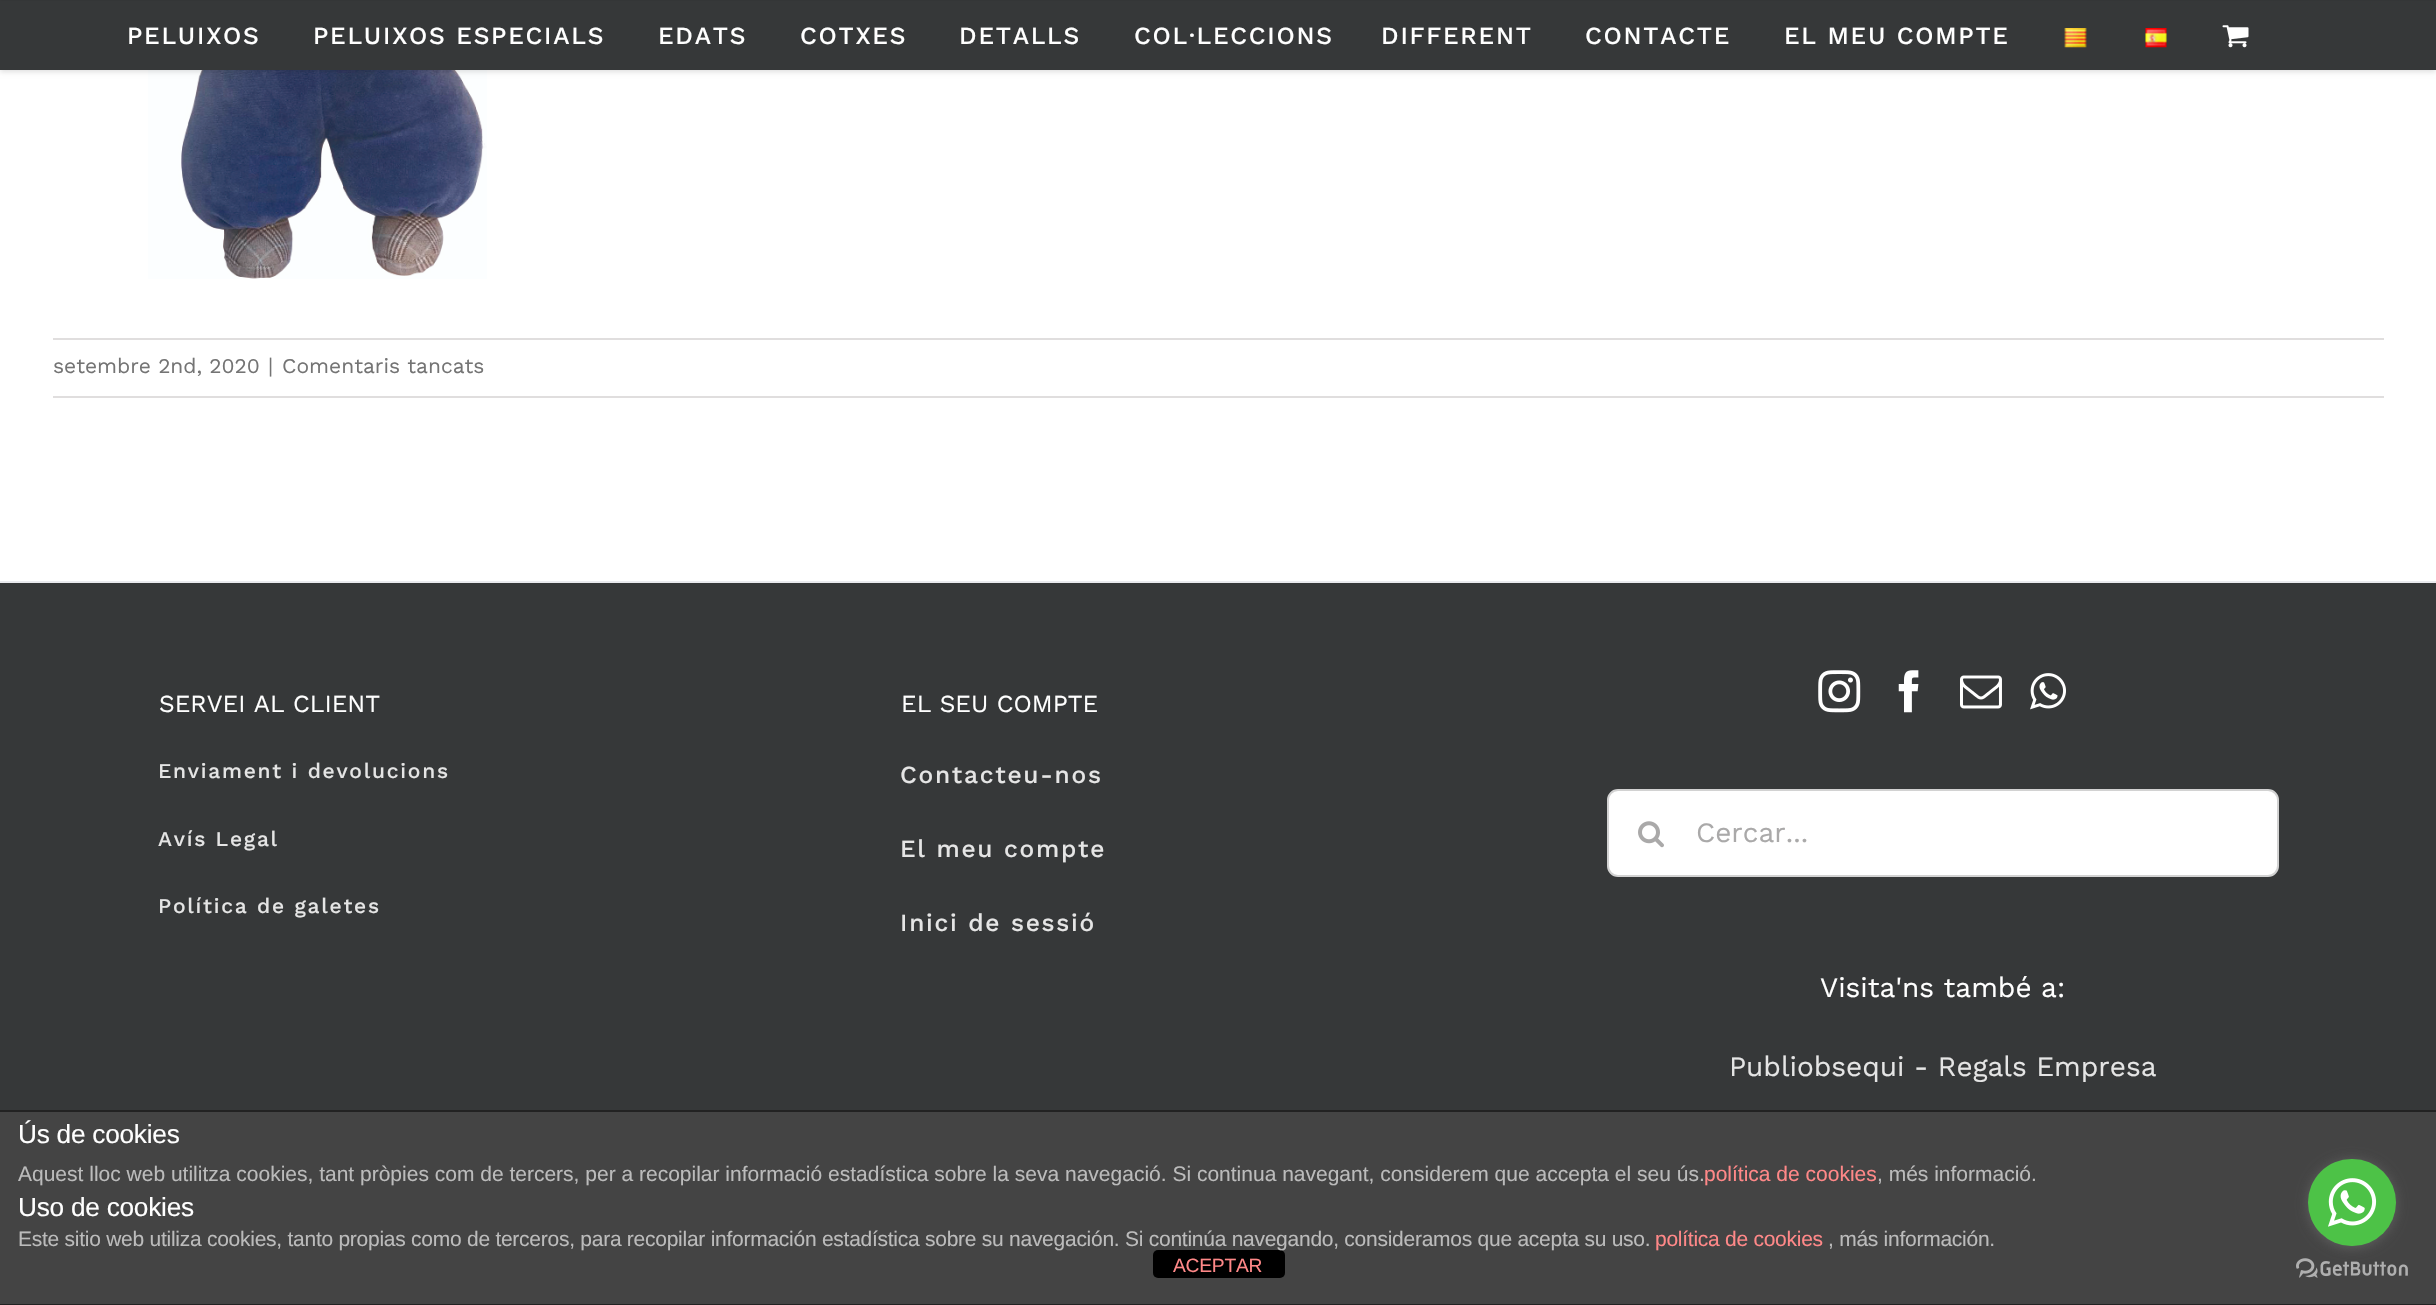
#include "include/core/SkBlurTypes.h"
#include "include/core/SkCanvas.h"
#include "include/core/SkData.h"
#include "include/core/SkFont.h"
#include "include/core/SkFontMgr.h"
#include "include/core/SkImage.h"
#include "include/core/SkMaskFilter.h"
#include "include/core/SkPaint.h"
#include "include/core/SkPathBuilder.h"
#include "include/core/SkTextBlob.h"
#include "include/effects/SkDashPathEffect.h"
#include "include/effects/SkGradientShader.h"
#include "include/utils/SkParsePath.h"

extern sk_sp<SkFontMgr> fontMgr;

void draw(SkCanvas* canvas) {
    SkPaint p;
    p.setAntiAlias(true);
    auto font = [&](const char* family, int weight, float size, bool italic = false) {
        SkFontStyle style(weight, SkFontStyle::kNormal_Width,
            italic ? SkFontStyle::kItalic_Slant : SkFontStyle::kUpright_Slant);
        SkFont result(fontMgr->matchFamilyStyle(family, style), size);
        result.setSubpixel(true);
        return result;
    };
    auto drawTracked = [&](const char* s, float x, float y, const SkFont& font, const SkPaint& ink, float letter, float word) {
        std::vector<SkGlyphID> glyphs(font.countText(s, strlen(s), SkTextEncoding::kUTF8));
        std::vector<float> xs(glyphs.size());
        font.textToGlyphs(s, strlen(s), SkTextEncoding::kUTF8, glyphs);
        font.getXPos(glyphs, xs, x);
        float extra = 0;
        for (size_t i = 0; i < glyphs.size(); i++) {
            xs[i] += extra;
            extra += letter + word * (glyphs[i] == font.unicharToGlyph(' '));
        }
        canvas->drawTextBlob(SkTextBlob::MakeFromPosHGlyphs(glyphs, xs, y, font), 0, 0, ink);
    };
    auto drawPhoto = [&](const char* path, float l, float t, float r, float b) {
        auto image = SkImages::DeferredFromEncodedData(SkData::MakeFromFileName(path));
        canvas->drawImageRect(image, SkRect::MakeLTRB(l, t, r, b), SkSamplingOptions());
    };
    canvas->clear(0xFF363839);
    p.setColor(0xFFFFFFFF);
    canvas->drawRect(SkRect::MakeLTRB(0, 70, 2436, 581), p);
    drawPhoto("media/4.png", 148, 70, 487, 279);
    p.setColor(0x1F000000);
    p.setMaskFilter(SkMaskFilter::MakeBlur(kNormal_SkBlurStyle, 2.5f));
    canvas->drawRect(SkRect::MakeLTRB(0, 2, 2436, 72), p);
    p.setMaskFilter(nullptr);
    p.setColor(0xFF363839);
    canvas->drawRect(SkRect::MakeLTRB(0, 1, 2436, 70), p);
    auto font1 = font("Work Sans", 500, 24.5f);
    p.setColor(0xFFFFFFFF);
    {
        const struct { const char* s; float x, y; } items[] = {
            {"PELUIXOS", 127, 44},
            {"PELUIXOS ESPECIALS", 313, 44},
            {"EDATS", 658, 44},
            {"COTXES", 800, 44},
            {"DETALLS", 959, 44},
            {"COL·LECCIONS", 1134, 44},
            {"DIFFERENT", 1381, 44},
            {"CONTACTE", 1585, 44},
            {"EL MEU COMPTE", 1784, 44},
        };
        for (auto [s, x, y] : items) {
            drawTracked(s, x, y, font1, p, 1.75f, 0);
        }
    }
    drawPhoto("media/1.png", 2064, 28, 2087, 48);
    drawPhoto("media/2.png", 2145, 28, 2167, 48);
    drawPhoto("media/3.png", 2222, 25, 2249, 48);
    p.setColor(0xFFE0DEDE);
    canvas->drawRect(SkRect::MakeLTRB(53, 338, 2384, 340), p);
    canvas->drawRect(SkRect::MakeLTRB(53, 396, 2384, 398), p);
    auto font2 = font("Work Sans", 400, 21);
    p.setColor(0xFF747474);
    {
        const struct { const char* s; float x, y; } items[] = {
            {"setembre 2nd, 2020", 53, 373},
            {"|", 268, 373},
            {"Comentaris tancats", 282, 373},
        };
        for (auto [s, x, y] : items) {
            canvas->drawString(s, x, y, font2, p);
        }
    }
    p.setColor(0xFFE9EAEE);
    canvas->drawRect(SkRect::MakeLTRB(0, 581, 2436, 583), p);
    auto font3 = font("Work Sans", 400, 24.5f);
    p.setColor(0xFFFFFFFF);
    canvas->drawString("SERVEI AL CLIENT", 159, 712, font3, p);
    auto font4 = font("Work Sans", 500, 21);
    p.setColor(0xFFE5E5E5);
    {
        const struct { const char* s; float x, y; } items[] = {
            {"Enviament i devolucions", 158, 778},
            {"Avís Legal", 158, 846},
            {"Política de galetes", 158, 913},
        };
        for (auto [s, x, y] : items) {
            drawTracked(s, x, y, font4, p, 1.75f, 0);
        }
    }
    p.setColor(0xFFFFFFFF);
    canvas->drawString("EL SEU COMPTE", 901, 712, font3, p);
    p.setColor(0xFFE5E5E5);
    {
        const struct { const char* s; float x, y; } items[] = {
            {"Contacteu-nos", 900, 783},
            {"El meu compte", 900, 857},
            {"Inici de sessió", 900, 931},
        };
        for (auto [s, x, y] : items) {
            drawTracked(s, x, y, font1, p, 1.75f, 0);
        }
    }
    drawPhoto("media/5.png", 1818, 670, 1861, 713);
    drawPhoto("media/6.png", 1898, 670, 1919, 713);
    drawPhoto("media/7.png", 1960, 675, 2002, 709);
    drawPhoto("media/8.png", 2030, 673, 2066, 710);
    p.setColor(0xFFFFFFFF);
    canvas->drawRoundRect(SkRect::MakeLTRB(1608, 790, 2278, 876), 10, 10, p);
    p.setStyle(SkPaint::kStroke_Style);
    p.setStrokeWidth(2);
    p.setColor(0xFFD2D2D2);
    canvas->drawRoundRect(SkRect::MakeLTRB(1608, 790, 2278, 876), 10, 10, p);
    drawPhoto("media/9.png", 1638, 821, 1664, 848);
    auto font5 = font("Work Sans", 400, 28);
    p.setStyle(SkPaint::kFill_Style);
    p.setColor(0xFFAAA9A9);
    canvas->drawString("Cercar...", 1696, 842, font5, p);
    p.setColor(0xFFFFFFFF);
    canvas->drawString("Visita'ns també a:", 1820, 997, font5, p);
    p.setColor(0xFFE5E5E5);
    canvas->drawString("Publiobsequi - Regals Empresa", 1729, 1076, font5, p);
    {
        const struct { float l, t, r, b; SkColor color; } items[] = {
            {0, 1112, 2436, 1304, 0xFF444444},
            {0, 1110, 2436, 1112, 0xFF222222},
            {0, 1304, 2436, 1305, 0xFF222222},
        };
        for (auto [l, t, r, b, color] : items) {
            p.setColor(color);
            canvas->drawRect(SkRect::MakeLTRB(l, t, r, b), p);
        }
    }
    auto font6 = font("Liberation Sans", 400, 26.25f);
    p.setColor(0xFFFFFFFF);
    drawTracked("Ús de cookies", 18, 1143, font6, p, -0.26f, 0);
    auto font7 = font("Liberation Sans", 400, 21);
    p.setColor(0xFFBBBBBB);
    canvas->drawString("Aquest lloc web utilitza cookies, tant pròpies com de tercers, per a recopilar informació estadística sobre la seva navegació. Si continua navegant, considerem que accepta el seu ús.", 18, 1181, font7, p);
    p.setColor(0xFFFF8888);
    canvas->drawString("política de cookies", 1704, 1181, font7, p);
    p.setColor(0xFFBBBBBB);
    canvas->drawString(", més informació.", 1877, 1181, font7, p);
    p.setColor(0xFFFFFFFF);
    drawTracked("Uso de cookies", 18, 1216, font6, p, -0.26f, 0);
    p.setColor(0xFF000000);
    canvas->drawRoundRect(SkRect::MakeLTRB(1153, 1250, 1285, 1278), 5, 5, p);
    p.setColor(0xFFBBBBBB);
    drawTracked("Este sitio web utiliza cookies, tanto propias como de terceros, para recopilar información estadística sobre su navegación. Si continúa navegando, consideramos que acepta su uso.", 18, 1246, font7, p, -0.26f, 0);
    p.setColor(0xFFFF8888);
    drawTracked("política de cookies", 1655, 1246, font7, p, -0.26f, 0);
    p.setColor(0xFFBBBBBB);
    drawTracked(", más información.", 1828, 1246, font7, p, -0.26f, 0);
    auto font8 = font("Liberation Sans", 400, 19.25f);
    p.setColor(0xFFFF8888);
    drawTracked("ACEPTAR", 1173, 1272, font8, p, -0.26f, 0);
    drawPhoto("media/11.png", 2296, 1258, 2408, 1278);
    p.setColor(0x66888888);
    p.setMaskFilter(SkMaskFilter::MakeBlur(kNormal_SkBlurStyle, 6));
    canvas->drawRoundRect(SkRect::MakeLTRB(2308, 1160, 2396, 1248), 44, 44, p);
    p.setMaskFilter(nullptr);
    p.setColor(0xFF4DC247);
    canvas->drawRoundRect(SkRect::MakeLTRB(2308, 1159, 2396, 1246), 43.5f, 43.5f, p);
    drawPhoto("media/10.png", 2328, 1178, 2377, 1227);
}
